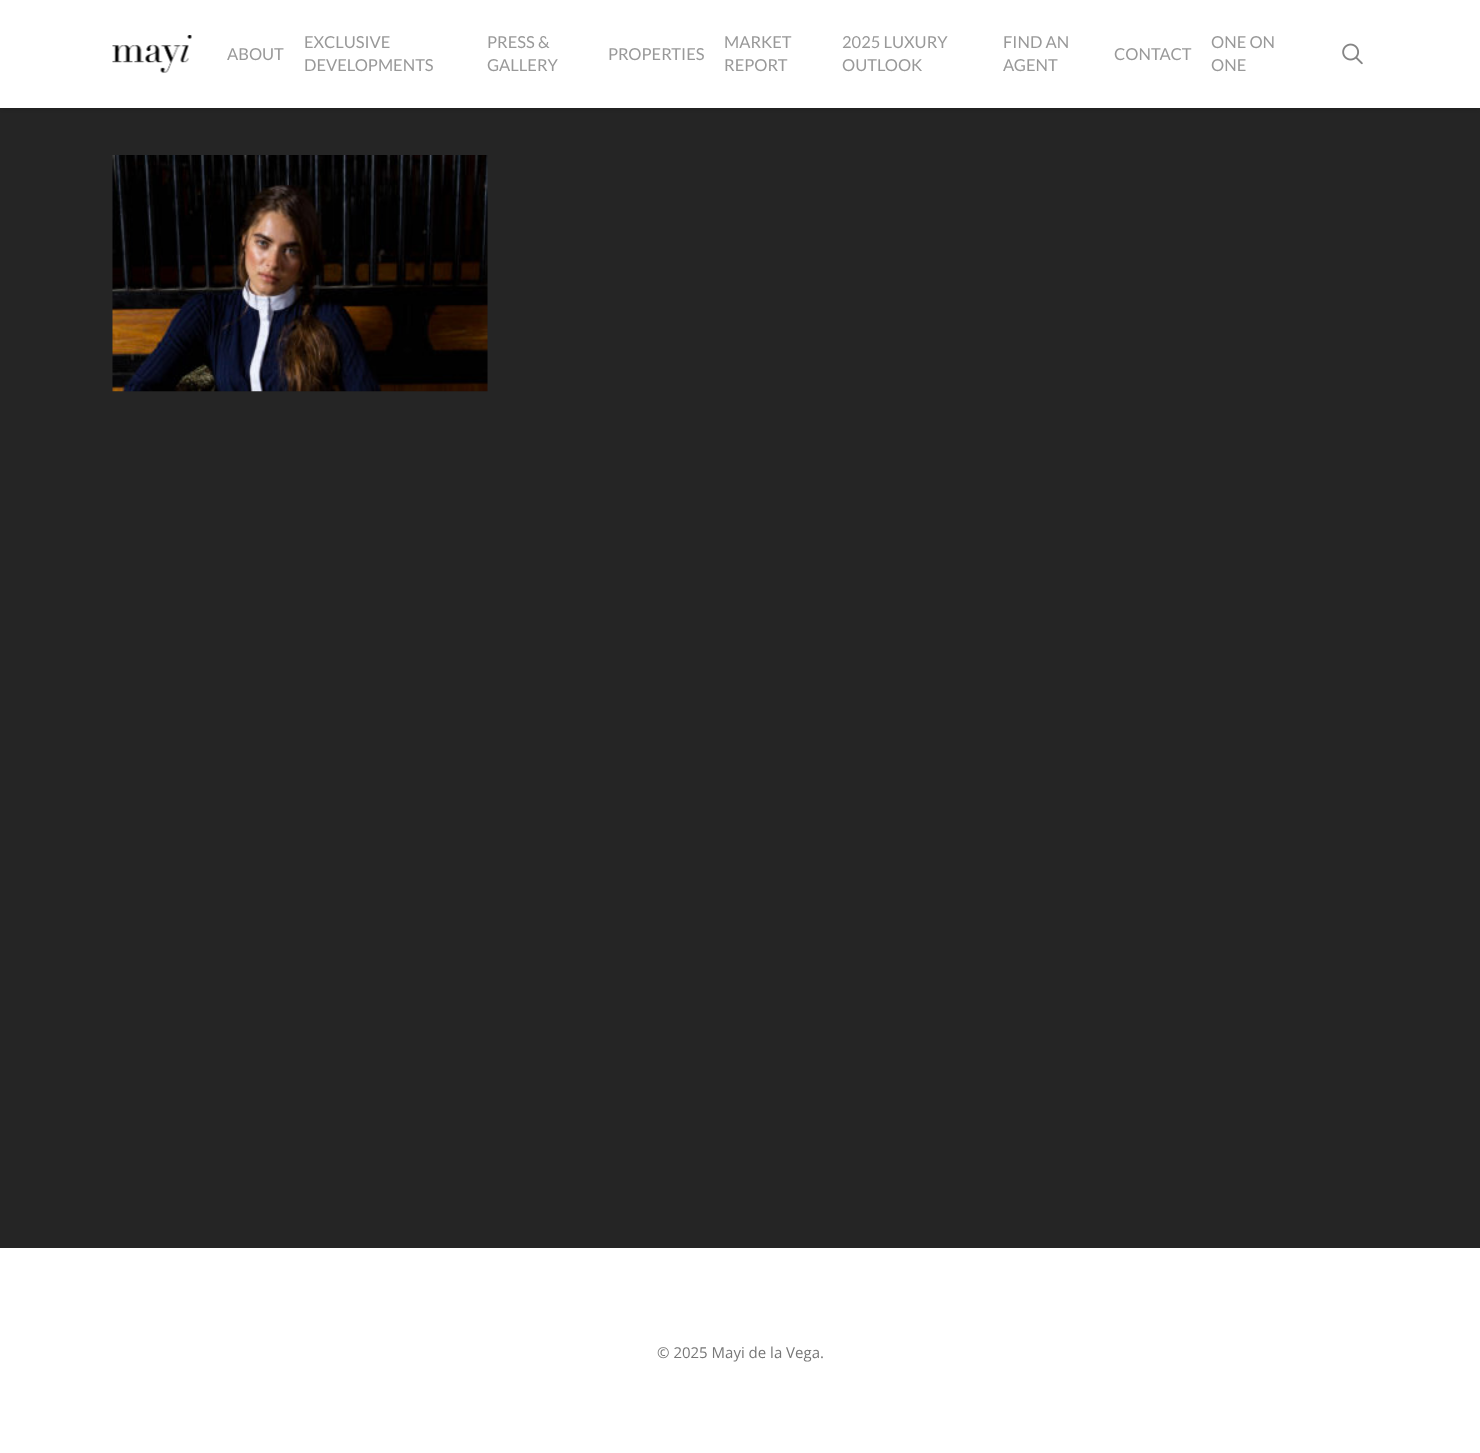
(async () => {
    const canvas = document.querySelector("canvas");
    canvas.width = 1480;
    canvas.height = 1453;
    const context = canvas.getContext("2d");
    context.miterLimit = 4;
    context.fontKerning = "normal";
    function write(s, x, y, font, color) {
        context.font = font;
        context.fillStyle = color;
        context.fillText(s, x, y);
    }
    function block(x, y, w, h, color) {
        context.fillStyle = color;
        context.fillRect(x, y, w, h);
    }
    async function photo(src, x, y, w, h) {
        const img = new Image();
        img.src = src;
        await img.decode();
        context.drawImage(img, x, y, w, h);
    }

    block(0, 0, 1480, 1453, "rgb(255, 255, 255)");
    block(0, 108, 1480, 1140, "rgb(37, 37, 37)");
    context.fillStyle = "rgba(0, 0, 0, 0.22)";
    context.filter = "blur(2px)";
    context.beginPath();
    context.rect(0, 0, 1480, 108);
    context.fill();
    context.filter = "none";
    block(0, 0, 1480, 108, "rgb(255, 255, 255)");
    await photo("media/1.png", 112, 35, 80, 38);
    write("ABOUT", 227, 60, "16.5px Lato", "rgb(153, 153, 153)");
    write("EXCLUSIVE", 304, 48, "16.5px Lato", "rgb(153, 153, 153)");
    write("DEVELOPMENTS", 304, 71, "16.5px Lato", "rgb(153, 153, 153)");
    write("PRESS &", 487, 48, "16.5px Lato", "rgb(153, 153, 153)");
    write("GALLERY", 487, 71, "16.5px Lato", "rgb(153, 153, 153)");
    write("PROPERTIES", 608, 60, "16.5px Lato", "rgb(153, 153, 153)");
    write("MARKET", 724, 48, "16.5px Lato", "rgb(153, 153, 153)");
    write("REPORT", 724, 71, "16.5px Lato", "rgb(153, 153, 153)");
    write("2025 LUXURY", 842, 48, "16.5px Lato", "rgb(153, 153, 153)");
    write("OUTLOOK", 842, 71, "16.5px Lato", "rgb(153, 153, 153)");
    write("FIND AN", 1003, 48, "16.5px Lato", "rgb(153, 153, 153)");
    write("AGENT", 1003, 71, "16.5px Lato", "rgb(153, 153, 153)");
    write("CONTACT", 1114, 60, "16.5px Lato", "rgb(153, 153, 153)");
    write("ONE ON", 1211, 48, "16.5px Lato", "rgb(153, 153, 153)");
    write("ONE", 1211, 71, "16.5px Lato", "rgb(153, 153, 153)");
    await photo("media/2.png", 1342, 43, 21, 22);
    await photo("media/3.png", 112, 155, 376, 237);
    write("© 2025 Mayi de la Vega.", 657, 1358, "15px Open Sans", "rgb(119, 119, 119)");
})();
